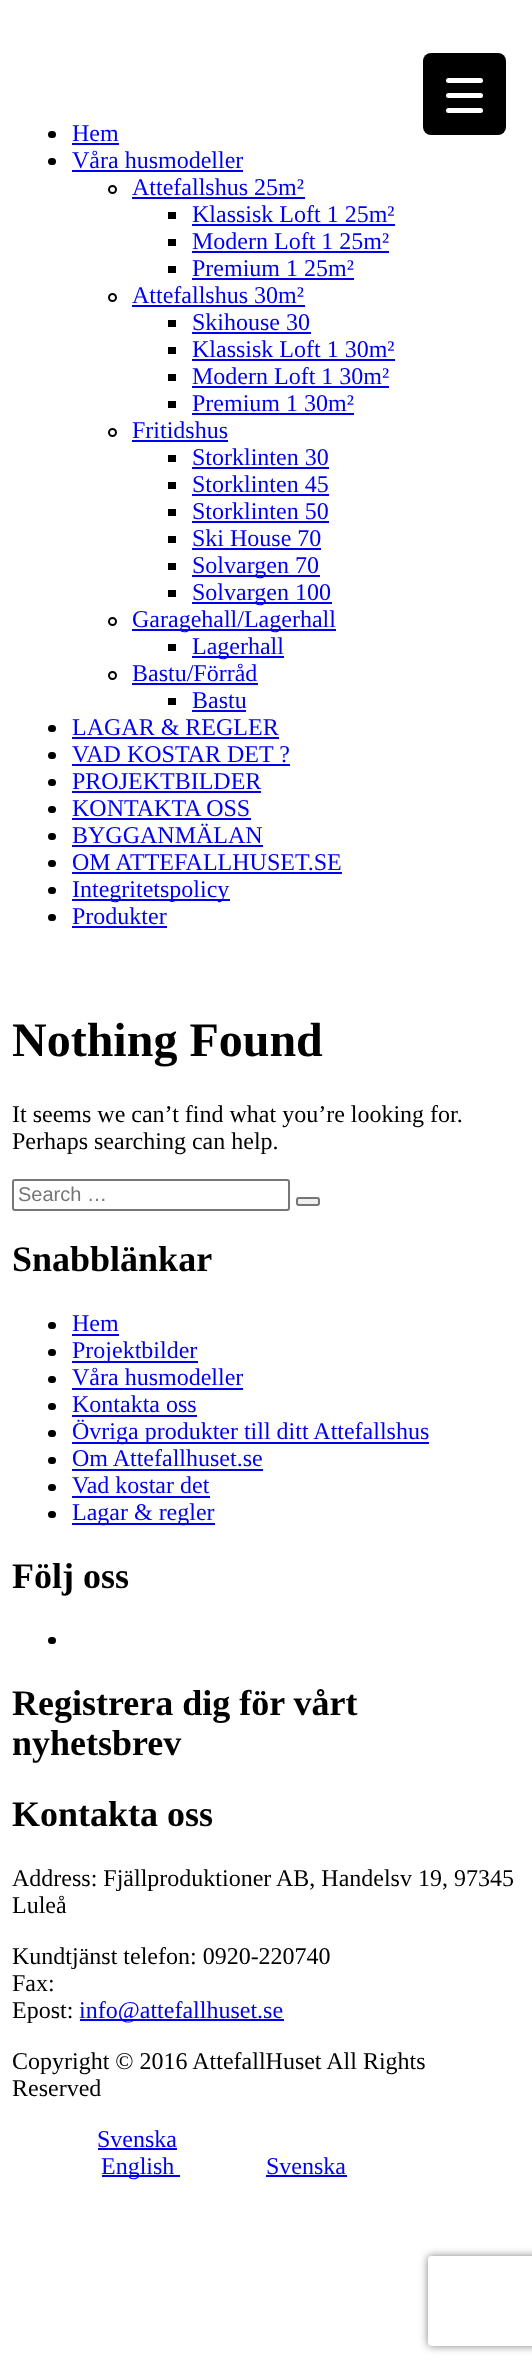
(async () => {
    const canvas = document.querySelector("canvas");
    canvas.width = 532;
    canvas.height = 2366;
    const context = canvas.getContext("2d");
    context.miterLimit = 4;
    context.fontKerning = "normal";
    function write(s, x, y, font, color) {
        context.font = font;
        context.fillStyle = color;
        context.fillText(s, x, y);
    }
    function block(x, y, w, h, color) {
        context.fillStyle = color;
        context.fillRect(x, y, w, h);
    }
    function card(x, y, w, h, r, color) {
        context.fillStyle = color;
        context.beginPath();
        context.roundRect(x, y, w, h, r);
        context.fill();
    }

    block(0, 0, 532, 2366, "rgb(255, 255, 255)");
    card(423, 53, 83, 82, 8, "rgb(0, 0, 0)");
    card(446, 93, 37, 5, 2.5, "rgb(255, 255, 255)");
    card(446, 78, 37, 5, 2.5, "rgb(255, 255, 255)");
    card(446, 108, 37, 5, 2.5, "rgb(255, 255, 255)");
    card(48, 131, 8, 7, 3.5, "rgb(0, 0, 0)");
    write("Hem", 72, 141, "24px Liberation Serif", "rgb(0, 0, 238)");
    block(72, 143, 47, 2, "rgb(0, 0, 238)");
    card(48, 158, 8, 7, 3.5, "rgb(0, 0, 0)");
    write("Våra husmodeller", 72, 168, "24px Liberation Serif", "rgb(0, 0, 238)");
    block(72, 170, 171, 2, "rgb(0, 0, 238)");
    context.beginPath();
    context.arc(112.5, 189.5, 3.5, 0, Math.PI * 2);
    context.strokeStyle = "rgb(0, 0, 0)";
    context.lineWidth = 2;
    context.stroke();
    write("Attefallshus 25m²", 132, 195, "24px Liberation Serif", "rgb(0, 0, 238)");
    block(132, 197, 173, 2, "rgb(0, 0, 238)");
    block(168, 212, 8, 7, "rgb(0, 0, 0)");
    write("Klassisk Loft 1 25m²", 192, 222, "24px Liberation Serif", "rgb(0, 0, 238)");
    block(192, 224, 203, 2, "rgb(0, 0, 238)");
    block(168, 239, 8, 7, "rgb(0, 0, 0)");
    write("Modern Loft 1 25m²", 192, 249, "24px Liberation Serif", "rgb(0, 0, 238)");
    block(192, 251, 197, 2, "rgb(0, 0, 238)");
    block(168, 266, 8, 7, "rgb(0, 0, 0)");
    write("Premium 1 25m²", 192, 276, "24px Liberation Serif", "rgb(0, 0, 238)");
    block(192, 278, 162, 2, "rgb(0, 0, 238)");
    context.beginPath();
    context.arc(112.5, 297.5, 3.5, 0, Math.PI * 2);
    context.stroke();
    write("Attefallshus 30m²", 132, 303, "24px Liberation Serif", "rgb(0, 0, 238)");
    block(132, 305, 173, 2, "rgb(0, 0, 238)");
    block(168, 320, 8, 7, "rgb(0, 0, 0)");
    write("Skihouse 30", 192, 330, "24px Liberation Serif", "rgb(0, 0, 238)");
    block(192, 332, 119, 2, "rgb(0, 0, 238)");
    block(168, 347, 8, 7, "rgb(0, 0, 0)");
    write("Klassisk Loft 1 30m²", 192, 357, "24px Liberation Serif", "rgb(0, 0, 238)");
    block(192, 359, 203, 2, "rgb(0, 0, 238)");
    block(168, 374, 8, 7, "rgb(0, 0, 0)");
    write("Modern Loft 1 30m²", 192, 384, "24px Liberation Serif", "rgb(0, 0, 238)");
    block(192, 386, 197, 2, "rgb(0, 0, 238)");
    block(168, 401, 8, 7, "rgb(0, 0, 0)");
    write("Premium 1 30m²", 192, 411, "24px Liberation Serif", "rgb(0, 0, 238)");
    block(192, 413, 162, 2, "rgb(0, 0, 238)");
    context.beginPath();
    context.arc(112.5, 432.5, 3.5, 0, Math.PI * 2);
    context.stroke();
    write("Fritidshus", 132, 438, "24px Liberation Serif", "rgb(0, 0, 238)");
    block(132, 440, 96, 2, "rgb(0, 0, 238)");
    block(168, 455, 8, 7, "rgb(0, 0, 0)");
    write("Storklinten 30", 192, 465, "24px Liberation Serif", "rgb(0, 0, 238)");
    block(192, 467, 137, 2, "rgb(0, 0, 238)");
    block(168, 482, 8, 7, "rgb(0, 0, 0)");
    write("Storklinten 45", 192, 492, "24px Liberation Serif", "rgb(0, 0, 238)");
    block(192, 494, 137, 2, "rgb(0, 0, 238)");
    block(168, 509, 8, 7, "rgb(0, 0, 0)");
    write("Storklinten 50", 192, 519, "24px Liberation Serif", "rgb(0, 0, 238)");
    block(192, 521, 137, 2, "rgb(0, 0, 238)");
    block(168, 536, 8, 7, "rgb(0, 0, 0)");
    write("Ski House 70", 192, 546, "24px Liberation Serif", "rgb(0, 0, 238)");
    block(192, 548, 129, 2, "rgb(0, 0, 238)");
    block(168, 563, 8, 7, "rgb(0, 0, 0)");
    block(192, 575, 128, 2, "rgb(0, 0, 238)");
    write("Solvargen 70", 192, 573, "24px Liberation Serif", "rgb(0, 0, 238)");
    block(168, 590, 8, 7, "rgb(0, 0, 0)");
    block(192, 602, 140, 2, "rgb(0, 0, 238)");
    write("Solvargen 100", 192, 600, "24px Liberation Serif", "rgb(0, 0, 238)");
    context.beginPath();
    context.arc(112.5, 621.5, 3.5, 0, Math.PI * 2);
    context.stroke();
    block(132, 629, 204, 2, "rgb(0, 0, 238)");
    write("Garagehall/Lagerhall", 132, 627, "24px Liberation Serif", "rgb(0, 0, 238)");
    block(168, 644, 8, 7, "rgb(0, 0, 0)");
    block(192, 656, 92, 2, "rgb(0, 0, 238)");
    write("Lagerhall", 192, 654, "24px Liberation Serif", "rgb(0, 0, 238)");
    context.beginPath();
    context.arc(112.5, 675.5, 3.5, 0, Math.PI * 2);
    context.stroke();
    write("Bastu/Förråd", 132, 681, "24px Liberation Serif", "rgb(0, 0, 238)");
    block(132, 683, 126, 2, "rgb(0, 0, 238)");
    block(168, 698, 8, 7, "rgb(0, 0, 0)");
    write("Bastu", 192, 708, "24px Liberation Serif", "rgb(0, 0, 238)");
    block(192, 710, 54, 2, "rgb(0, 0, 238)");
    card(48, 725, 8, 7, 3.5, "rgb(0, 0, 0)");
    write("LAGAR & REGLER", 72, 735, "24px Liberation Serif", "rgb(0, 0, 238)");
    block(72, 737, 207, 2, "rgb(0, 0, 238)");
    card(48, 752, 8, 7, 3.5, "rgb(0, 0, 0)");
    write("VAD KOSTAR DET ?", 72, 762, "24px Liberation Serif", "rgb(0, 0, 238)");
    block(72, 764, 218, 2, "rgb(0, 0, 238)");
    card(48, 779, 8, 7, 3.5, "rgb(0, 0, 0)");
    write("PROJEKTBILDER", 72, 789, "24px Liberation Serif", "rgb(0, 0, 238)");
    block(72, 791, 189, 2, "rgb(0, 0, 238)");
    card(48, 806, 8, 7, 3.5, "rgb(0, 0, 0)");
    write("KONTAKTA OSS", 72, 816, "24px Liberation Serif", "rgb(0, 0, 238)");
    block(72, 818, 179, 2, "rgb(0, 0, 238)");
    card(48, 833, 8, 7, 3.5, "rgb(0, 0, 0)");
    write("BYGGANMÄLAN", 72, 843, "24px Liberation Serif", "rgb(0, 0, 238)");
    block(72, 845, 191, 2, "rgb(0, 0, 238)");
    card(48, 860, 8, 7, 3.5, "rgb(0, 0, 0)");
    write("OM ATTEFALLHUSET.SE", 72, 870, "24px Liberation Serif", "rgb(0, 0, 238)");
    block(72, 872, 270, 2, "rgb(0, 0, 238)");
    card(48, 887, 8, 7, 3.5, "rgb(0, 0, 0)");
    block(72, 899, 158, 2, "rgb(0, 0, 238)");
    write("Integritetspolicy", 72, 897, "24px Liberation Serif", "rgb(0, 0, 238)");
    card(48, 914, 8, 7, 3.5, "rgb(0, 0, 0)");
    write("Produkter", 72, 924, "24px Liberation Serif", "rgb(0, 0, 238)");
    block(72, 926, 95, 2, "rgb(0, 0, 238)");
    write("Nothing Found", 12, 1056, "bold 48px Liberation Serif", "rgb(0, 0, 0)");
    write("It seems we can’t find what you’re looking for.", 12, 1122, "24px Liberation Serif", "rgb(0, 0, 0)");
    write("Perhaps searching can help.", 12, 1149, "24px Liberation Serif", "rgb(0, 0, 0)");
    context.beginPath();
    context.roundRect(13, 1180, 276, 30, 2);
    context.strokeStyle = "rgb(118, 118, 118)";
    context.stroke();
    write("Search …", 18, 1201, "20px Liberation Sans", "rgb(117, 117, 117)");
    context.fillStyle = "rgb(239, 239, 239)";
    context.beginPath();
    context.roundRect(297, 1198, 22, 7, 2);
    context.fill();
    context.stroke();
    write("Snabblänkar", 12, 1271, "bold 36px Liberation Serif", "rgb(0, 0, 0)");
    card(48, 1322, 8, 7, 3.5, "rgb(0, 0, 0)");
    write("Hem", 72, 1331, "24px Liberation Serif", "rgb(0, 0, 238)");
    block(72, 1334, 47, 2, "rgb(0, 0, 238)");
    card(48, 1349, 8, 7, 3.5, "rgb(0, 0, 0)");
    block(72, 1361, 126, 2, "rgb(0, 0, 238)");
    write("Projektbilder", 72, 1358, "24px Liberation Serif", "rgb(0, 0, 238)");
    card(48, 1376, 8, 7, 3.5, "rgb(0, 0, 0)");
    write("Våra husmodeller", 72, 1385, "24px Liberation Serif", "rgb(0, 0, 238)");
    block(72, 1388, 171, 2, "rgb(0, 0, 238)");
    card(48, 1403, 8, 7, 3.5, "rgb(0, 0, 0)");
    write("Kontakta oss", 72, 1412, "24px Liberation Serif", "rgb(0, 0, 238)");
    block(72, 1415, 125, 2, "rgb(0, 0, 238)");
    card(48, 1430, 8, 7, 3.5, "rgb(0, 0, 0)");
    block(72, 1442, 357, 2, "rgb(0, 0, 238)");
    write("Övriga produkter till ditt Attefallshus", 72, 1439, "24px Liberation Serif", "rgb(0, 0, 238)");
    card(48, 1457, 8, 7, 3.5, "rgb(0, 0, 0)");
    write("Om Attefallhuset.se", 72, 1466, "24px Liberation Serif", "rgb(0, 0, 238)");
    block(72, 1469, 191, 2, "rgb(0, 0, 238)");
    card(48, 1484, 8, 7, 3.5, "rgb(0, 0, 0)");
    write("Vad kostar det", 72, 1493, "24px Liberation Serif", "rgb(0, 0, 238)");
    block(72, 1496, 138, 2, "rgb(0, 0, 238)");
    card(48, 1511, 8, 7, 3.5, "rgb(0, 0, 0)");
    block(72, 1523, 143, 2, "rgb(0, 0, 238)");
    write("Lagar & regler", 72, 1520, "24px Liberation Serif", "rgb(0, 0, 238)");
    write("Följ oss", 12, 1588, "bold 36px Liberation Serif", "rgb(0, 0, 0)");
    card(48, 1637, 8, 7, 3.5, "rgb(0, 0, 0)");
    write("Registrera dig för vårt", 12, 1715, "bold 36px Liberation Serif", "rgb(0, 0, 0)");
    write("nyhetsbrev", 12, 1755, "bold 36px Liberation Serif", "rgb(0, 0, 0)");
    write("Kontakta oss", 12, 1826, "bold 36px Liberation Serif", "rgb(0, 0, 0)");
    write("Address: Fjällproduktioner AB, Handelsv 19, 97345", 12, 1886, "24px Liberation Serif", "rgb(0, 0, 0)");
    write("Luleå", 12, 1913, "24px Liberation Serif", "rgb(0, 0, 0)");
    write("Kundtjänst telefon: 0920-220740", 12, 1964, "24px Liberation Serif", "rgb(0, 0, 0)");
    write("Fax:", 12, 1991, "24px Liberation Serif", "rgb(0, 0, 0)");
    write("Epost:", 12, 2018, "24px Liberation Serif", "rgb(0, 0, 0)");
    block(80, 2019, 204, 2, "rgb(0, 0, 238)");
    write("info@attefallhuset.se", 79, 2018, "24px Liberation Serif", "rgb(0, 0, 238)");
    write("Copyright © 2016 AttefallHuset All Rights", 12, 2069, "24px Liberation Serif", "rgb(0, 0, 0)");
    write("Reserved", 12, 2096, "24px Liberation Serif", "rgb(0, 0, 0)");
    write("Svenska", 97, 2147, "24px Liberation Serif", "rgb(0, 0, 238)");
    block(98, 2148, 79, 2, "rgb(0, 0, 238)");
    block(102, 2175, 78, 2, "rgb(0, 0, 238)");
    write("English", 101, 2174, "24px Liberation Serif", "rgb(0, 0, 238)");
    write("Svenska", 266, 2174, "24px Liberation Serif", "rgb(0, 0, 238)");
    block(266, 2175, 81, 2, "rgb(0, 0, 238)");
    context.save();
    context.beginPath();
    context.moveTo(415, 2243);
    context.lineTo(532, 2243);
    context.lineTo(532, 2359);
    context.lineTo(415, 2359);
    context.closePath();
    context.moveTo(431, 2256);
    context.lineTo(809, 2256);
    context.bezierCurveTo(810.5, 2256, 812, 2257.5, 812, 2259);
    context.lineTo(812, 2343);
    context.bezierCurveTo(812, 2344.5, 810.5, 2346, 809, 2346);
    context.lineTo(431, 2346);
    context.bezierCurveTo(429.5, 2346, 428, 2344.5, 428, 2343);
    context.lineTo(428, 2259);
    context.bezierCurveTo(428, 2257.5, 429.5, 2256, 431, 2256);
    context.closePath();
    context.clip("evenodd");
    context.fillStyle = "rgb(128, 128, 128)";
    context.filter = "blur(4px)";
    context.beginPath();
    context.roundRect(428, 2256, 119, 90, 3);
    context.fill();
    context.filter = "none";
    context.restore();
})();
